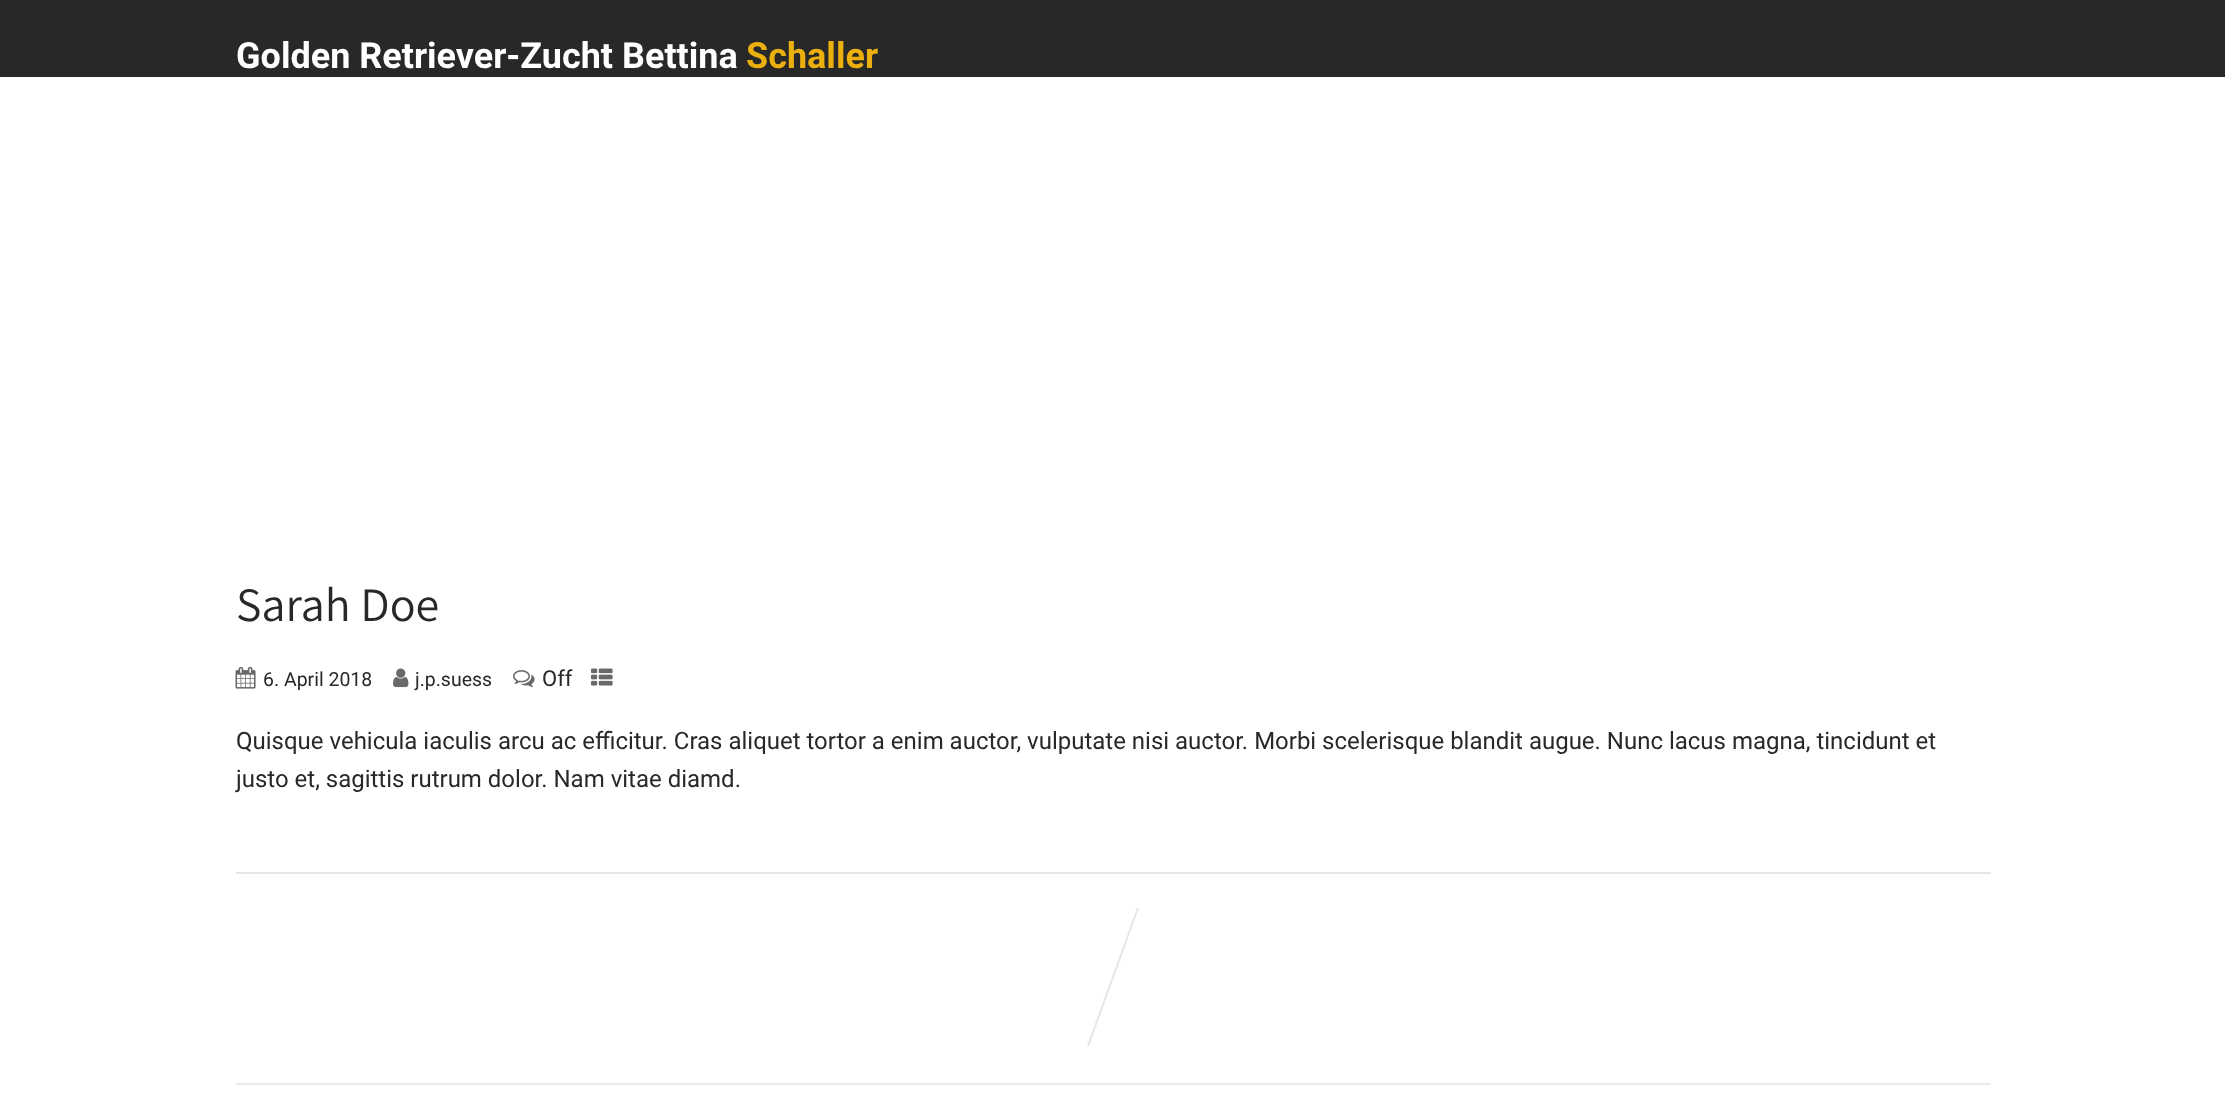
(async () => {
    const canvas = document.querySelector("canvas");
    canvas.width = 2225;
    canvas.height = 1116;
    const context = canvas.getContext("2d");
    context.miterLimit = 4;
    context.fontKerning = "normal";
    function write(s, x, y, font, color) {
        context.font = font;
        context.fillStyle = color;
        context.fillText(s, x, y);
    }
    function block(x, y, w, h, color) {
        context.fillStyle = color;
        context.fillRect(x, y, w, h);
    }
    async function photo(src, x, y, w, h) {
        const img = new Image();
        img.src = src;
        await img.decode();
        context.drawImage(img, x, y, w, h);
    }

    block(0, 0, 2225, 1116, "rgb(255, 255, 255)");
    block(0, 0, 2225, 77, "rgb(40, 40, 40)");
    write("Golden Retriever-Zucht Bettina", 236, 68, "bold 36px Roboto", "rgb(255, 255, 255)");
    write("Schaller", 746, 68, "bold 36px Roboto", "rgb(236, 176, 14)");
    write("Sarah Doe", 236, 621, "200 48px Assistant", "rgb(40, 40, 40)");
    await photo("media/1.png", 235, 667, 21, 22);
    write("6. April 2018", 263, 686, "19.5px Roboto", "rgb(40, 40, 40)");
    await photo("media/2.png", 393, 668, 16, 20);
    write("j.p.suess", 415, 686, "19.5px Roboto", "rgb(40, 40, 40)");
    await photo("media/3.png", 513, 670, 22, 17);
    write("Off", 542, 686, "22px Roboto", "rgb(40, 40, 40)");
    await photo("media/4.png", 591, 668, 22, 18);
    write("Quisque vehicula iaculis arcu ac efficitur. Cras aliquet tortor a enim auctor, vulputate nisi auctor. Morbi scelerisque blandit augue. Nunc lacus magna, tincidunt et", 236, 749, "24px Roboto", "rgb(40, 40, 40)");
    write("justo et, sagittis rutrum dolor. Nam vitae diamd.", 236, 787, "24px Roboto", "rgb(40, 40, 40)");
    block(236, 872, 1755, 2, "rgb(230, 230, 230)");
    block(236, 1083, 1755, 2, "rgb(235, 235, 235)");
    context.fillStyle = "rgb(230, 230, 230)";
    context.beginPath();
    context.moveTo(1137, 908);
    context.lineTo(1139, 908);
    context.lineTo(1089, 1046);
    context.lineTo(1087, 1046);
    context.closePath();
    context.fill();
})();
